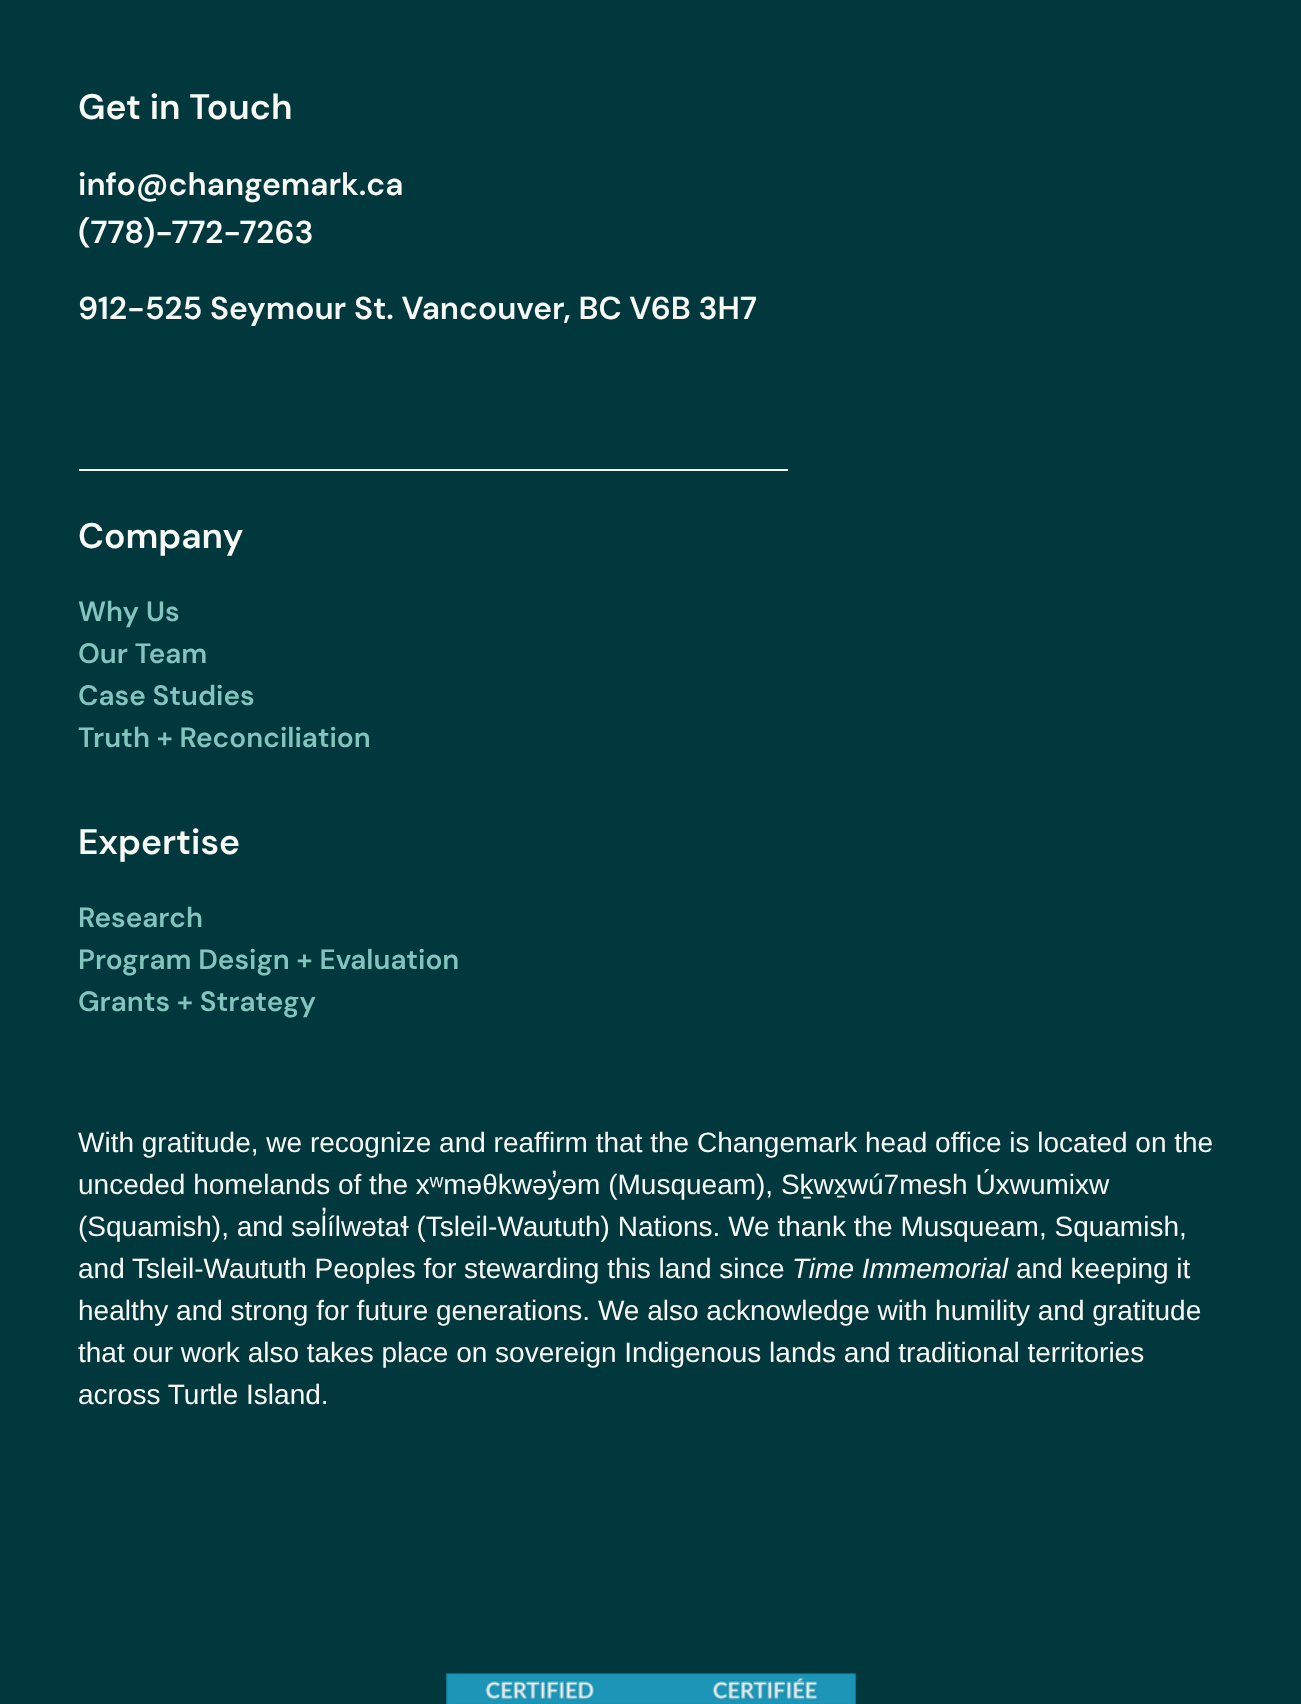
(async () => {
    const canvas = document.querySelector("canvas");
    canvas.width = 1301;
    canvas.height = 1704;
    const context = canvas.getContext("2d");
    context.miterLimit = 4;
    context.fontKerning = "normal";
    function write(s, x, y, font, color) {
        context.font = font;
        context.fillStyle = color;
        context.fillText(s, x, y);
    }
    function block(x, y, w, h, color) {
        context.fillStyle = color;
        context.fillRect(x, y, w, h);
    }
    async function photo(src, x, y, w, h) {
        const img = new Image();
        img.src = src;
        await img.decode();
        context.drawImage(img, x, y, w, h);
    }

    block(0, 0, 1301, 1704, "rgb(0, 56, 61)");
    write("Get in Touch", 78, 119, "600 35.5px DM Sans", "rgb(248, 248, 245)");
    write("info@changemark.ca", 78, 195, "600 31.75px DM Sans", "rgb(248, 248, 245)");
    write("(778)-772-7263", 78, 243, "600 31.75px DM Sans", "rgb(248, 248, 245)");
    write("912-525 Seymour St. Vancouver, BC V6B 3H7", 78, 319, "600 31.75px DM Sans", "rgb(248, 248, 245)");
    block(79, 469, 709, 2, "rgb(248, 248, 245)");
    write("Company", 78, 548, "600 35.5px DM Sans", "rgb(248, 248, 245)");
    write("Why Us", 78, 621, "600 28px DM Sans", "rgb(131, 197, 190)");
    write("Our Team", 78, 663, "600 28px DM Sans", "rgb(131, 197, 190)");
    write("Case Studies", 78, 705, "600 28px DM Sans", "rgb(131, 197, 190)");
    write("Truth + Reconciliation", 78, 747, "600 28px DM Sans", "rgb(131, 197, 190)");
    write("Expertise", 78, 854, "600 35.5px DM Sans", "rgb(248, 248, 245)");
    write("Research", 78, 927, "600 28px DM Sans", "rgb(131, 197, 190)");
    write("Program Design + Evaluation", 78, 969, "600 28px DM Sans", "rgb(131, 197, 190)");
    write("Grants + Strategy", 78, 1011, "600 28px DM Sans", "rgb(131, 197, 190)");
    write("With gratitude, we recognize and reaffirm that the Changemark head office is located on the", 78, 1152, "28px Liberation Sans", "rgb(248, 248, 245)");
    write("unceded homelands of the xʷməθkwəy̓əm (Musqueam), Sḵwx̱wú7mesh Úxwumixw", 78, 1194, "28px Liberation Sans", "rgb(248, 248, 245)");
    write("(Squamish), and səl̓ílwətaɬ (Tsleil-Waututh) Nations. We thank the Musqueam, Squamish,", 78, 1236, "28px Liberation Sans", "rgb(248, 248, 245)");
    write("and Tsleil-Waututh Peoples for stewarding this land since", 78, 1278, "28px Liberation Sans", "rgb(248, 248, 245)");
    write("Time Immemorial", 792, 1278, "italic 28px Liberation Sans", "rgb(248, 248, 245)");
    write("and keeping it", 1016, 1278, "28px Liberation Sans", "rgb(248, 248, 245)");
    write("healthy and strong for future generations. We also acknowledge with humility and gratitude", 78, 1320, "28px Liberation Sans", "rgb(248, 248, 245)");
    write("that our work also takes place on sovereign Indigenous lands and traditional territories", 78, 1362, "28px Liberation Sans", "rgb(248, 248, 245)");
    write("across Turtle Island.", 78, 1404, "28px Liberation Sans", "rgb(248, 248, 245)");
    await photo("media/1.png", 446, 1673, 410, 31);
})();
